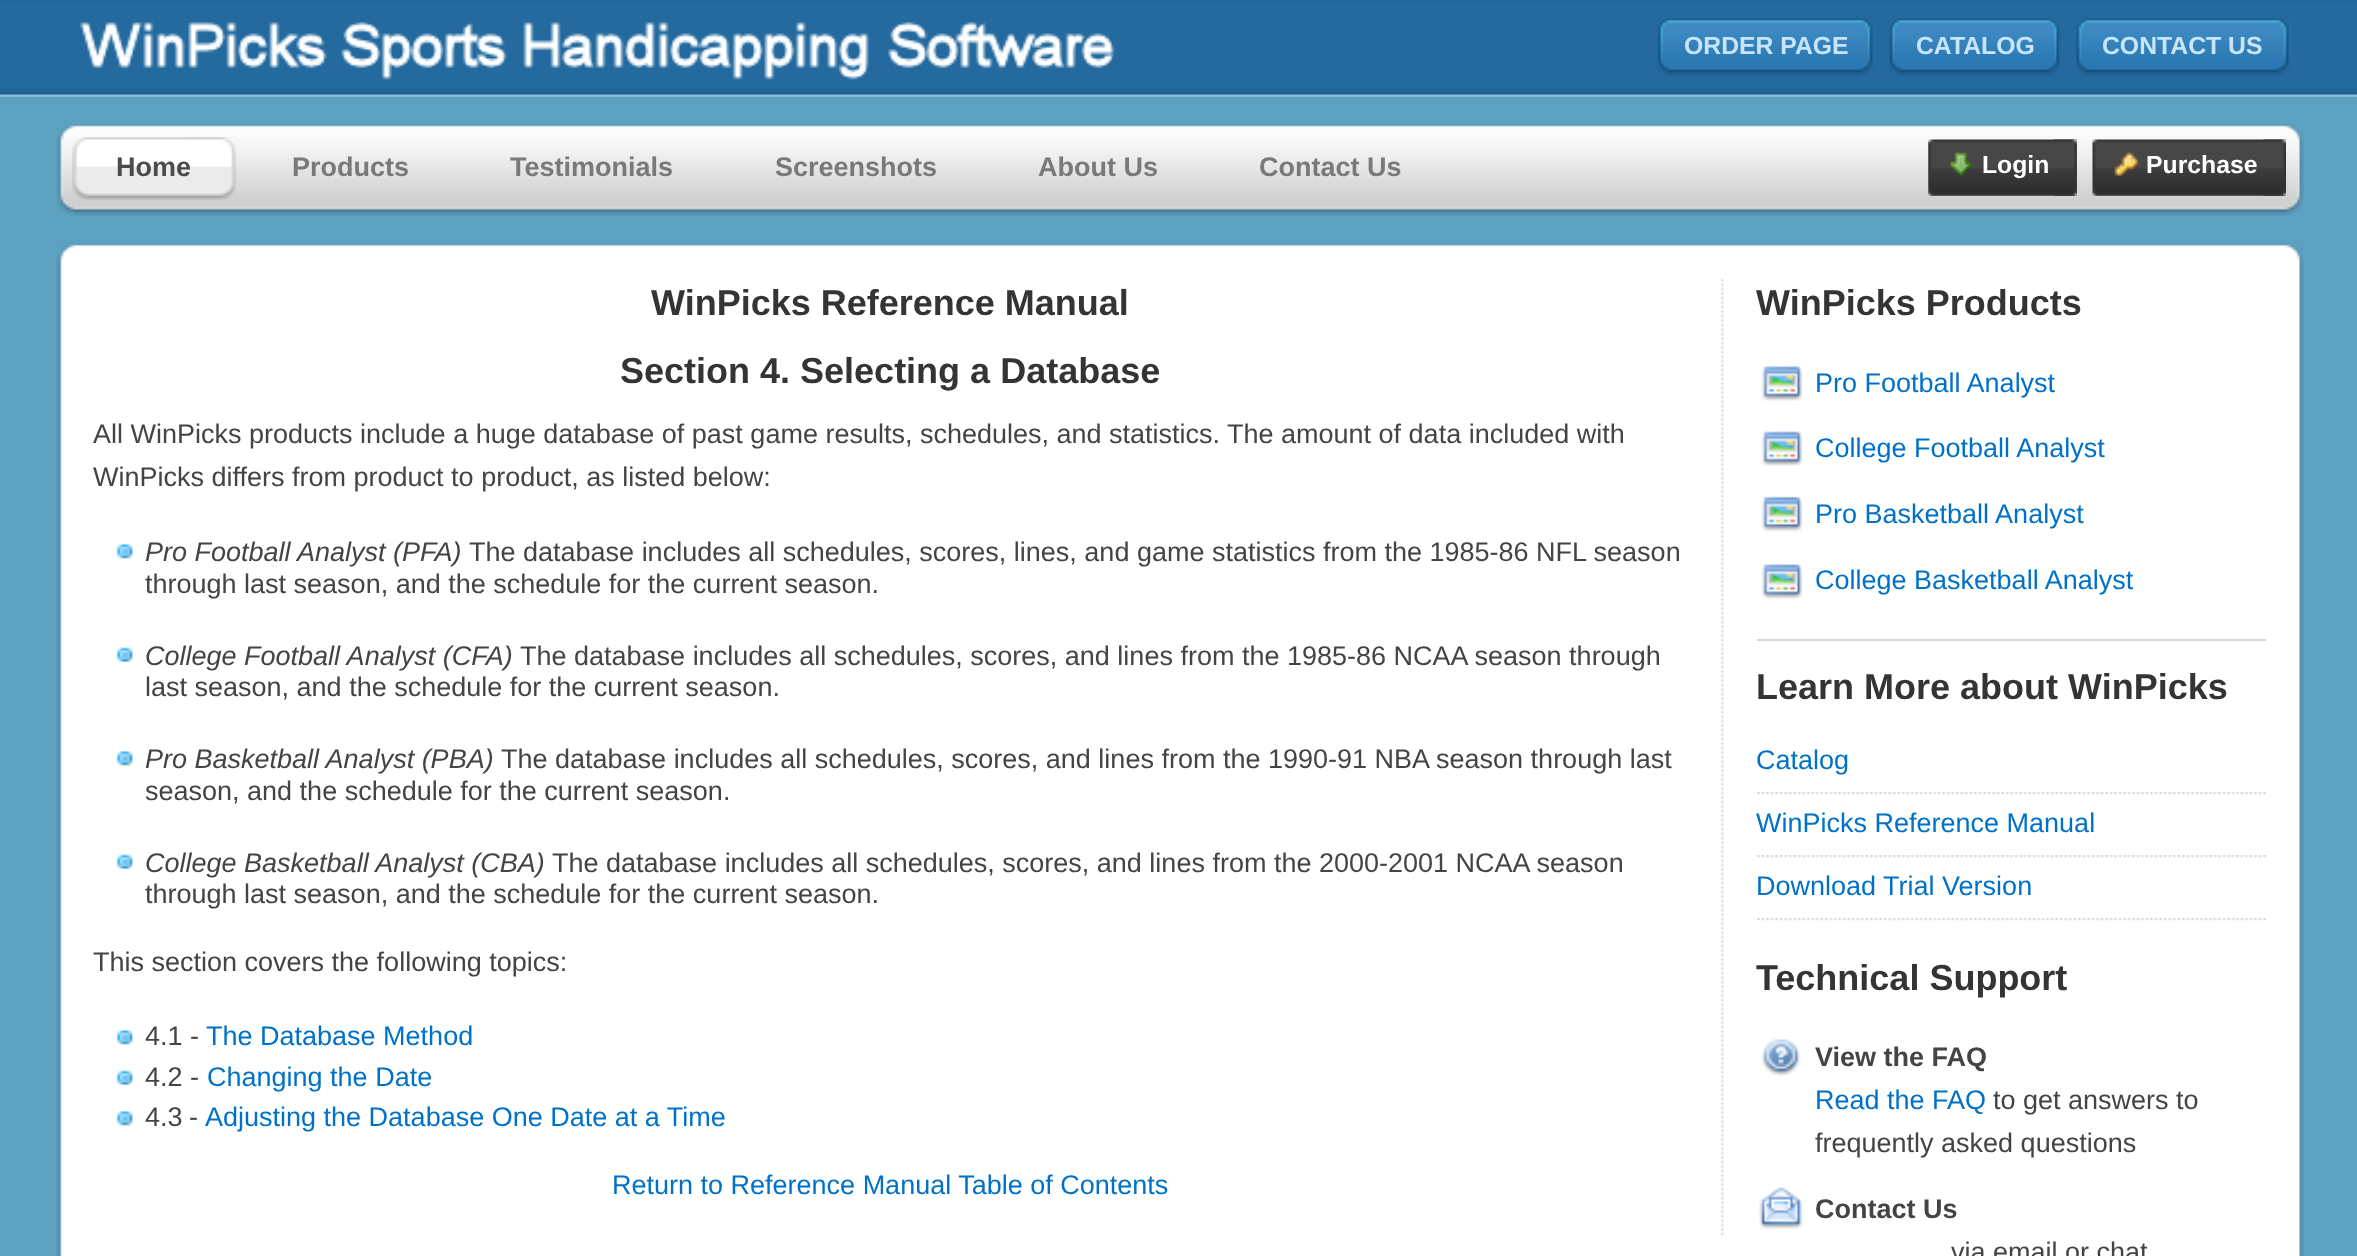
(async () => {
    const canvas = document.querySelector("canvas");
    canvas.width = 2357;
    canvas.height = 1256;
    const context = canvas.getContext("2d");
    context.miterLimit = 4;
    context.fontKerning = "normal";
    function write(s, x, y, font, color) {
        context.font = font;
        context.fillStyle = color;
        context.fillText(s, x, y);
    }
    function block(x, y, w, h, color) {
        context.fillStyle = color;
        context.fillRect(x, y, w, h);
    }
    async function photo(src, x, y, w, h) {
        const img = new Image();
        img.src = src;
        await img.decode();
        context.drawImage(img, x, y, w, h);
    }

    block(0, 0, 2357, 1256, "rgb(93, 161, 192)");
    await photo("media/1.png", 0, 0, 2357, 97);
    await photo("media/2.png", 80, 22, 1035, 58);
    await photo("media/3.png", 1657, 18, 218, 59);
    await photo("media/4.png", 1859, 18, 16, 59);
    write("ORDER PAGE", 1684, 54, "bold 24.75px Liberation Sans", "rgb(199, 229, 252)");
    await photo("media/5.png", 1889, 18, 157, 59);
    await photo("media/6.png", 2046, 18, 15, 59);
    write("CATALOG", 1916, 54, "bold 24.75px Liberation Sans", "rgb(199, 229, 252)");
    await photo("media/7.png", 2076, 18, 215, 59);
    await photo("media/8.png", 2276, 18, 15, 59);
    write("CONTACT US", 2102, 54, "bold 24.75px Liberation Sans", "rgb(199, 229, 252)");
    await photo("media/9.png", 56, 124, 2248, 92);
    await photo("media/10.png", 72, 137, 165, 63);
    await photo("media/11.png", 189, 137, 48, 63);
    write("Home", 116, 176, "bold 27px Liberation Sans", "rgb(75, 75, 75)");
    write("Products", 292, 176, "bold 27px Liberation Sans", "rgb(121, 121, 121)");
    write("Testimonials", 510, 176, "bold 27px Liberation Sans", "rgb(121, 121, 121)");
    write("Screenshots", 775, 176, "bold 27px Liberation Sans", "rgb(121, 121, 121)");
    write("About Us", 1038, 176, "bold 27px Liberation Sans", "rgb(121, 121, 121)");
    write("Contact Us", 1259, 176, "bold 27px Liberation Sans", "rgb(121, 121, 121)");
    await photo("media/12.png", 1928, 139, 149, 57);
    await photo("media/13.png", 2054, 139, 23, 57);
    await photo("media/14.png", 1950, 152, 22, 24);
    write("Login", 1982, 173, "bold 24.75px Liberation Sans", "rgb(255, 255, 255)");
    await photo("media/15.png", 2092, 139, 194, 57);
    await photo("media/16.png", 2263, 139, 23, 57);
    await photo("media/17.png", 2114, 152, 25, 25);
    write("Purchase", 2146, 173, "bold 24.75px Liberation Sans", "rgb(255, 255, 255)");
    await photo("media/18.png", 56, 243, 2248, 36);
    await photo("media/19.png", 56, 279, 2248, 977);
    await photo("media/20.png", 1721, 279, 3, 957);
    write("WinPicks Reference Manual", 651, 315, "bold 36px Liberation Sans", "rgb(52, 52, 52)");
    write("Section 4. Selecting a Database", 620, 383, "bold 36px Liberation Sans", "rgb(52, 52, 52)");
    write("All WinPicks products include a huge database of past game results, schedules, and statistics.", 93, 443, "27px Liberation Sans", "rgb(68, 68, 68)");
    write("The amount of data included with", 1227, 443, "27px Liberation Sans", "rgb(68, 68, 68)");
    write("WinPicks differs from product to product, as listed below:", 93, 486, "27px Liberation Sans", "rgb(68, 68, 68)");
    await photo("media/21.png", 116, 544, 17, 15);
    write("Pro Football Analyst (PFA)", 145, 561, "italic 27px Liberation Sans", "rgb(68, 68, 68)");
    write("The database includes all schedules, scores, lines, and game statistics from the 1985-86 NFL season", 469, 561, "27px Liberation Sans", "rgb(68, 68, 68)");
    write("through last season, and the schedule for the current season.", 145, 593, "27px Liberation Sans", "rgb(68, 68, 68)");
    await photo("media/22.png", 116, 647, 17, 16);
    write("College Football Analyst (CFA)", 145, 665, "italic 27px Liberation Sans", "rgb(68, 68, 68)");
    write("The database includes all schedules, scores, and lines from the 1985-86 NCAA season through", 520, 665, "27px Liberation Sans", "rgb(68, 68, 68)");
    write("last season, and the schedule for the current season.", 145, 696, "27px Liberation Sans", "rgb(68, 68, 68)");
    await photo("media/21.png", 116, 751, 17, 15);
    write("Pro Basketball Analyst (PBA)", 145, 768, "italic 27px Liberation Sans", "rgb(68, 68, 68)");
    write("The database includes all schedules, scores, and lines from the 1990-91 NBA season through last", 501, 768, "27px Liberation Sans", "rgb(68, 68, 68)");
    write("season, and the schedule for the current season.", 145, 800, "27px Liberation Sans", "rgb(68, 68, 68)");
    await photo("media/22.png", 116, 854, 17, 16);
    write("College Basketball Analyst (CBA)", 145, 872, "italic 27px Liberation Sans", "rgb(68, 68, 68)");
    write("The database includes all schedules, scores, and lines from the 2000-2001 NCAA season", 552, 872, "27px Liberation Sans", "rgb(68, 68, 68)");
    write("through last season, and the schedule for the current season.", 145, 903, "27px Liberation Sans", "rgb(68, 68, 68)");
    write("This section covers the following topics:", 93, 971, "27px Liberation Sans", "rgb(68, 68, 68)");
    await photo("media/21.png", 116, 1030, 17, 15);
    write("4.1 -", 145, 1045, "27px Liberation Sans", "rgb(68, 68, 68)");
    write("The Database Method", 206, 1045, "27px Liberation Sans", "rgb(0, 113, 200)");
    await photo("media/22.png", 116, 1070, 17, 16);
    write("4.2 -", 145, 1086, "27px Liberation Sans", "rgb(68, 68, 68)");
    write("Changing the Date", 207, 1086, "27px Liberation Sans", "rgb(0, 113, 200)");
    await photo("media/21.png", 116, 1111, 17, 15);
    context.wordSpacing = "-1px";
    write("4.3 -", 145, 1126, "27px Liberation Sans", "rgb(68, 68, 68)");
    context.wordSpacing = "0px";
    write("Adjusting the Database One Date at a Time", 205, 1126, "27px Liberation Sans", "rgb(0, 113, 200)");
    write("Return to Reference Manual Table of Contents", 612, 1194, "27px Liberation Sans", "rgb(0, 113, 200)");
    block(1757, 639, 509, 2, "rgb(215, 215, 215)");
    write("WinPicks Products", 1756, 315, "bold 36px Liberation Sans", "rgb(52, 52, 52)");
    await photo("media/23.png", 1761, 366, 42, 35);
    write("Pro Football Analyst", 1815, 392, "27px Liberation Sans", "rgb(0, 113, 200)");
    await photo("media/24.png", 1761, 431, 42, 35);
    write("College Football Analyst", 1815, 457, "27px Liberation Sans", "rgb(0, 113, 200)");
    await photo("media/25.png", 1761, 496, 42, 36);
    write("Pro Basketball Analyst", 1815, 523, "27px Liberation Sans", "rgb(0, 113, 200)");
    await photo("media/26.png", 1761, 564, 42, 35);
    write("College Basketball Analyst", 1815, 589, "27px Liberation Sans", "rgb(0, 113, 200)");
    write("Learn More about WinPicks", 1756, 699, "bold 36px Liberation Sans", "rgb(52, 52, 52)");
    await photo("media/27.png", 1757, 792, 509, 3);
    write("Catalog", 1756, 769, "27px Liberation Sans", "rgb(0, 113, 200)");
    await photo("media/27.png", 1757, 855, 509, 3);
    write("WinPicks Reference Manual", 1756, 832, "27px Liberation Sans", "rgb(0, 113, 200)");
    await photo("media/27.png", 1757, 918, 509, 3);
    write("Download Trial Version", 1756, 895, "27px Liberation Sans", "rgb(0, 113, 200)");
    write("Technical Support", 1756, 990, "bold 36px Liberation Sans", "rgb(52, 52, 52)");
    await photo("media/28.png", 1761, 1039, 40, 37);
    write("View the FAQ", 1815, 1066, "bold 27px Liberation Sans", "rgb(68, 68, 68)");
    write("Read the FAQ", 1815, 1109, "27px Liberation Sans", "rgb(0, 113, 200)");
    write("to get answers to", 1993, 1109, "27px Liberation Sans", "rgb(68, 68, 68)");
    write("frequently asked questions", 1815, 1152, "27px Liberation Sans", "rgb(68, 68, 68)");
    await photo("media/29.png", 1759, 1187, 44, 42);
    write("Contact Us", 1815, 1218, "bold 27px Liberation Sans", "rgb(68, 68, 68)");
    write("via email or chat", 1951, 1261, "27px Liberation Sans", "rgb(68, 68, 68)");
})();
